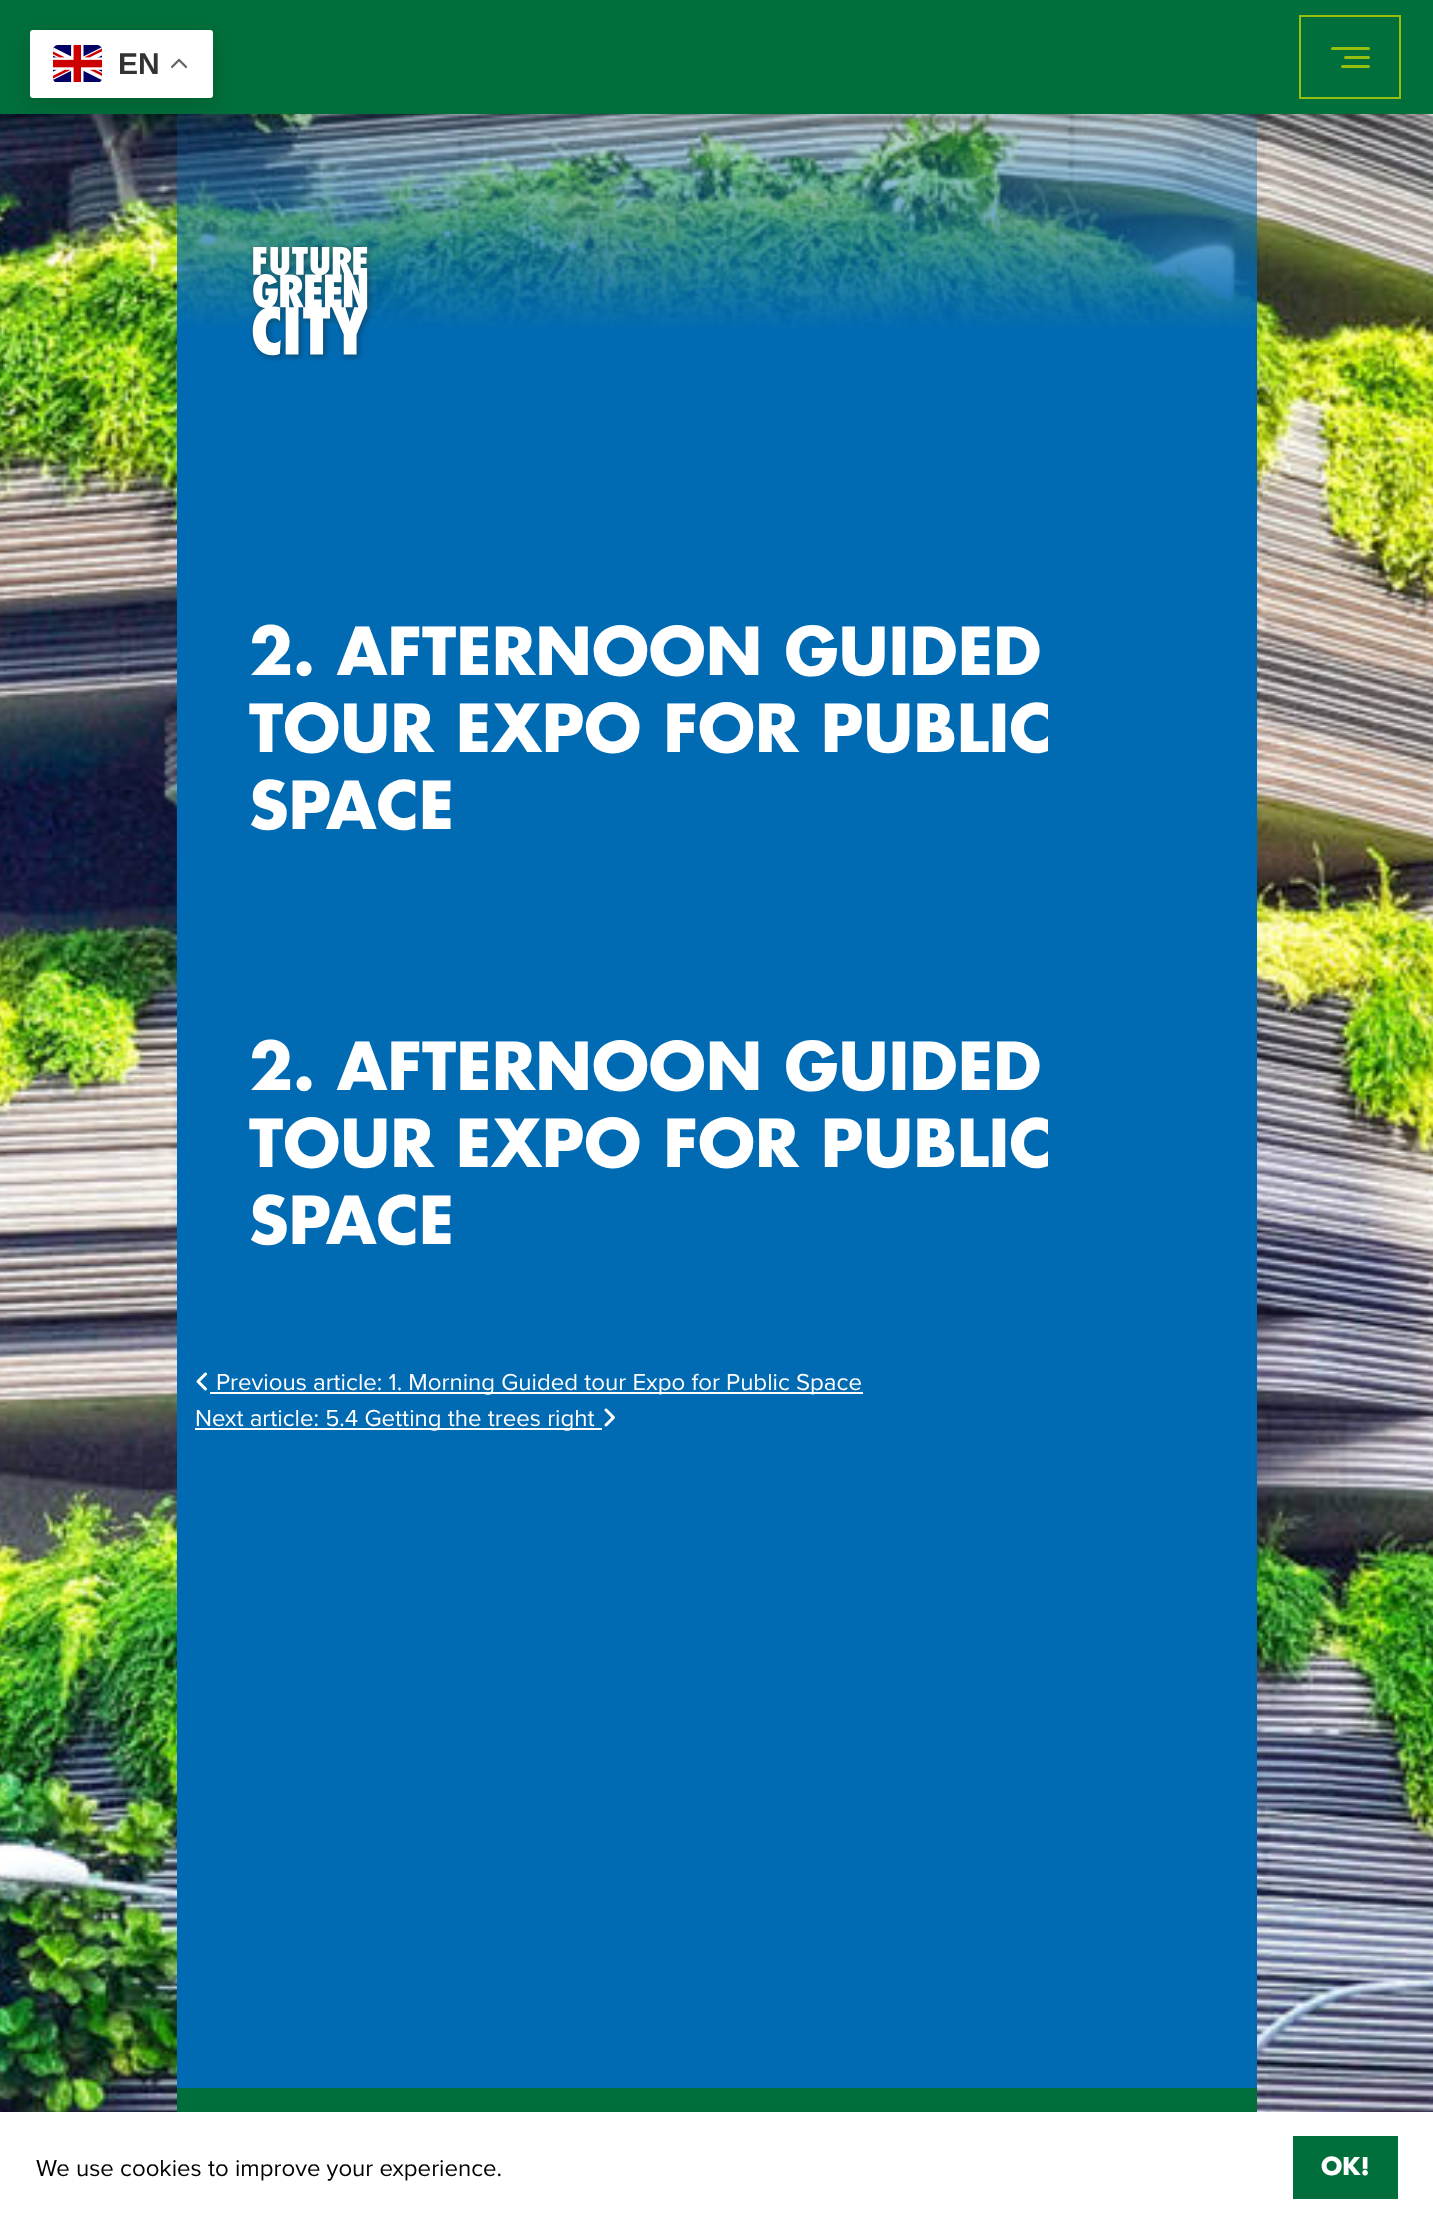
(async () => {
    const canvas = document.querySelector("canvas");
    canvas.width = 1433;
    canvas.height = 2222;
    const context = canvas.getContext("2d");
    context.miterLimit = 4;
    context.fontKerning = "normal";
    function write(s, x, y, font, color) {
        context.font = font;
        context.fillStyle = color;
        context.fillText(s, x, y);
    }
    function block(x, y, w, h, color) {
        context.fillStyle = color;
        context.fillRect(x, y, w, h);
    }
    function card(x, y, w, h, r, color) {
        context.fillStyle = color;
        context.beginPath();
        context.roundRect(x, y, w, h, r);
        context.fill();
    }
    async function photo(src, x, y, w, h) {
        const img = new Image();
        img.src = src;
        await img.decode();
        context.drawImage(img, x, y, w, h);
    }

    block(0, 0, 1433, 2222, "rgb(255, 255, 255)");
    await photo("media/3.png", 0, 114, 1433, 1998);
    context.fillStyle = "rgba(0, 0, 0, 0.15)";
    context.filter = "blur(12px)";
    context.beginPath();
    context.rect(0, 12, 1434, 114);
    context.fill();
    context.filter = "none";
    block(0, 0, 1433, 114, "rgb(0, 111, 59)");
    context.strokeStyle = "rgb(151, 191, 13)";
    context.lineWidth = 2;
    context.strokeRect(1300, 16, 100, 82);
    card(1331, 47, 39, 3, 1.5, "rgb(151, 191, 13)");
    card(1344, 56, 26, 3, 1.5, "rgb(151, 191, 13)");
    card(1341, 65, 29, 3, 1.5, "rgb(151, 191, 13)");
    context.fillStyle = "rgba(0, 0, 0, 0.15)";
    context.filter = "blur(11px)";
    context.beginPath();
    context.roundRect(30, 38, 183, 67, 3);
    context.fill();
    context.filter = "none";
    card(30, 30, 183, 68, 3, "rgb(255, 255, 255)");
    await photo("media/1.png", 53, 45, 49, 38);
    write("EN", 118, 74, "bold 30px Liberation Sans", "rgb(51, 51, 51)");
    await photo("media/2.png", 171, 58, 17, 11);
    await photo("media/4.png", 250, 245, 123, 117);
    write("2. AFTERNOON GUIDED", 249, 675, "bold 64.25px Futura", "rgb(255, 255, 255)");
    write("TOUR EXPO FOR PUBLIC", 249, 752, "bold 64.25px Futura", "rgb(255, 255, 255)");
    write("SPACE", 249, 829, "bold 64.25px Futura", "rgb(255, 255, 255)");
    write("2. AFTERNOON GUIDED", 249, 1090, "bold 64.25px Futura", "rgb(255, 255, 255)");
    write("TOUR EXPO FOR PUBLIC", 249, 1167, "bold 64.25px Futura", "rgb(255, 255, 255)");
    write("SPACE", 249, 1244, "bold 64.25px Futura", "rgb(255, 255, 255)");
    await photo("media/5.png", 196, 1372, 11, 19);
    block(210, 1392, 653, 2, "rgb(255, 255, 255)");
    write("Previous article: 1. Morning Guided tour Expo for Public Space", 216, 1390, "24px Proxima Nova", "rgb(255, 255, 255)");
    block(195, 1428, 399, 2, "rgb(255, 255, 255)");
    write("Next article: 5.4 Getting the trees right", 195, 1426, "24px Proxima Nova", "rgb(255, 255, 255)");
    block(594, 1428, 8, 2, "rgb(255, 255, 255)");
    await photo("media/6.png", 604, 1408, 11, 19);
    block(177, 2088, 1080, 24, "rgb(0, 111, 59)");
    context.fillStyle = "rgba(0, 0, 0, 0.15)";
    context.filter = "blur(12px)";
    context.beginPath();
    context.rect(0, 2124, 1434, 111);
    context.fill();
    context.filter = "none";
    block(0, 2112, 1433, 110, "rgb(255, 255, 255)");
    write("We use cookies to improve your experience.", 36, 2176, "24px Proxima Nova", "rgb(0, 0, 0)");
    block(1293, 2136, 105, 63, "rgb(0, 111, 59)");
    write("OK!", 1321, 2175, "bold 24px Futura", "rgb(255, 255, 255)");
})();
